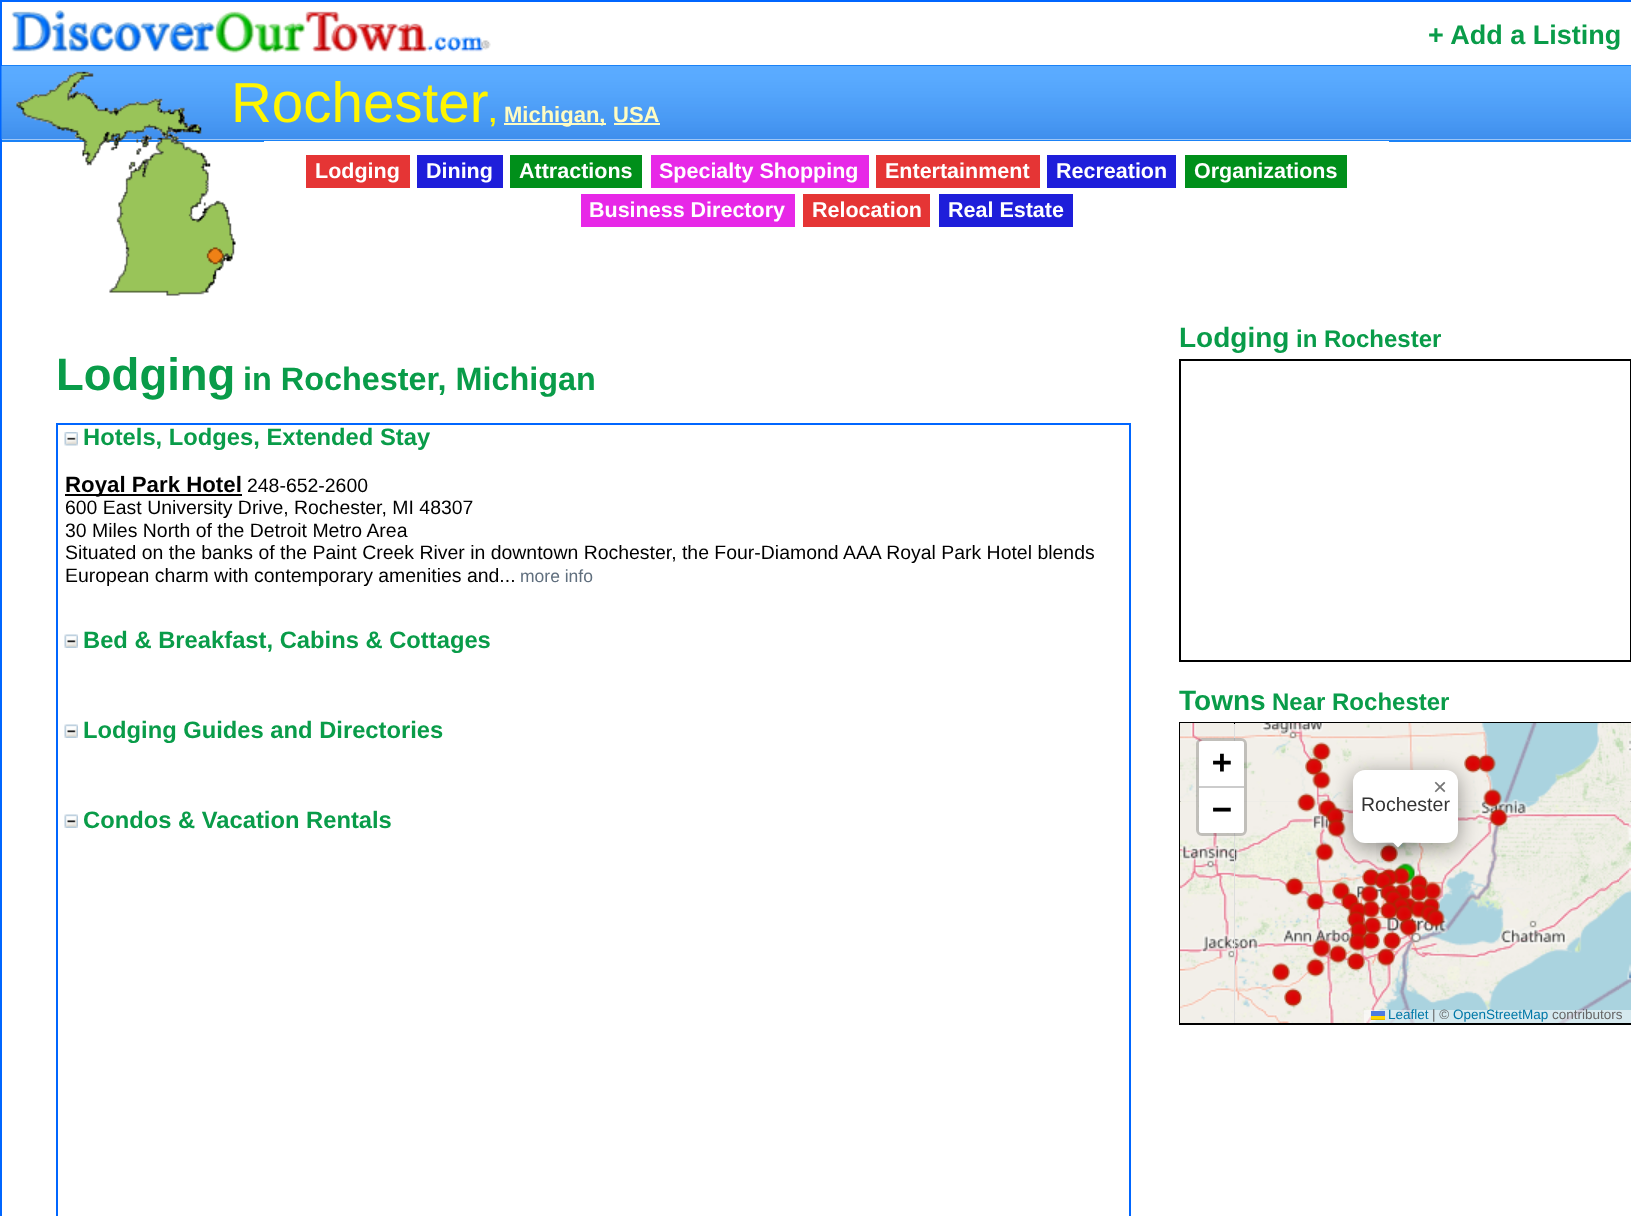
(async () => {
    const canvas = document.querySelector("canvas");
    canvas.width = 1631;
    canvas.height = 1216;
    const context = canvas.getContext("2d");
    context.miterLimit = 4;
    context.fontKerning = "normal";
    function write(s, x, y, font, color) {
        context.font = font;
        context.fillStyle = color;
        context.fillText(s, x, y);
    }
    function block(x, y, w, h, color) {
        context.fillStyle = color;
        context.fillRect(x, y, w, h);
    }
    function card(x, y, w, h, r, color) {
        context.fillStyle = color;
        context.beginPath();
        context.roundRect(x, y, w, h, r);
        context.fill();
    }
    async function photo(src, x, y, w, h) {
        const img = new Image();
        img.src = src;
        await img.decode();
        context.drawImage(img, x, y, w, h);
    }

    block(0, 0, 1631, 1216, "rgb(255, 255, 255)");
    context.strokeStyle = "rgb(0, 102, 255)";
    context.lineWidth = 2;
    context.strokeRect(1, 1, 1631, 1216);
    await photo("media/1.png", 11, 10, 480, 43);
    write("+ Add a Listing", 1428, 44, "bold 27px Liberation Sans", "rgb(9, 156, 73)");
    block(2, 65, 1629, 1, "rgb(26, 130, 247)");
    await photo("media/3.png", 1, 66, 1630, 74);
    write("Rochester", 231, 122, "56.5px Liberation Sans", "rgb(255, 245, 0)");
    block(2, 140, 1629, 2, "rgb(26, 130, 247)");
    await photo("media/2.png", 16, 71, 220, 225);
    write(",", 489, 122, "bold 27px Liberation Sans", "rgb(255, 245, 0)");
    block(504, 123, 102, 2, "rgb(254, 252, 194)");
    write("Michigan,", 504, 122, "bold 22px Liberation Sans", "rgb(254, 252, 194)");
    write("USA", 613, 122, "bold 22px Liberation Sans", "rgb(254, 252, 194)");
    block(614, 123, 46, 2, "rgb(254, 252, 194)");
    block(264, 141, 1125, 1, "rgb(255, 255, 255)");
    block(306, 155, 104, 33, "rgb(229, 53, 53)");
    write("Lodging", 315, 178, "bold 21.5px Liberation Sans", "rgb(255, 255, 255)");
    block(417, 155, 86, 33, "rgb(30, 30, 218)");
    write("Dining", 426, 178, "bold 21.5px Liberation Sans", "rgb(255, 255, 255)");
    block(510, 155, 132, 33, "rgb(0, 143, 26)");
    write("Attractions", 519, 178, "bold 21.5px Liberation Sans", "rgb(255, 255, 255)");
    block(651, 155, 218, 33, "rgb(231, 40, 231)");
    write("Specialty Shopping", 659, 178, "bold 21.5px Liberation Sans", "rgb(255, 255, 255)");
    block(876, 155, 164, 33, "rgb(229, 53, 53)");
    write("Entertainment", 885, 178, "bold 21.5px Liberation Sans", "rgb(255, 255, 255)");
    block(1047, 155, 129, 33, "rgb(30, 30, 218)");
    write("Recreation", 1056, 178, "bold 21.5px Liberation Sans", "rgb(255, 255, 255)");
    block(1185, 155, 162, 33, "rgb(0, 143, 26)");
    write("Organizations", 1194, 178, "bold 21.5px Liberation Sans", "rgb(255, 255, 255)");
    block(581, 194, 214, 33, "rgb(231, 40, 231)");
    write("Business Directory", 589, 217, "bold 21.5px Liberation Sans", "rgb(255, 255, 255)");
    block(803, 194, 127, 33, "rgb(229, 53, 53)");
    write("Relocation", 812, 217, "bold 21.5px Liberation Sans", "rgb(255, 255, 255)");
    block(939, 194, 134, 33, "rgb(30, 30, 218)");
    write("Real Estate", 948, 217, "bold 21.5px Liberation Sans", "rgb(255, 255, 255)");
    write("Lodging", 56, 390, "bold 45.5px Liberation Sans", "rgb(9, 156, 73)");
    write("in Rochester, Michigan", 243, 390, "bold 32.4px Liberation Sans", "rgb(9, 156, 73)");
    context.strokeRect(57, 424, 1073, 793);
    await photo("media/4.png", 64, 432, 14, 14);
    write("Hotels, Lodges, Extended Stay", 83, 445, "bold 23.75px Liberation Sans", "rgb(9, 156, 73)");
    block(65, 494, 177, 2, "rgb(0, 0, 0)");
    write("Royal Park Hotel", 65, 492, "bold 22.25px Liberation Sans", "rgb(0, 0, 0)");
    write("248-652-2600", 247, 492, "19.45px Liberation Sans", "rgb(0, 0, 0)");
    write("600 East University Drive, Rochester, MI 48307", 65, 514, "19.45px Liberation Sans", "rgb(0, 0, 0)");
    write("30 Miles North of the Detroit Metro Area", 65, 537, "19.45px Liberation Sans", "rgb(0, 0, 0)");
    write("Situated on the banks of the Paint Creek River in downtown Rochester, the Four-Diamond AAA Royal Park Hotel blends", 65, 559, "19.45px Liberation Sans", "rgb(0, 0, 0)");
    write("European charm with contemporary amenities and...", 65, 582, "19.45px Liberation Sans", "rgb(0, 0, 0)");
    write("more info", 520, 582, "17.5px Liberation Sans", "rgb(96, 111, 126)");
    await photo("media/5.png", 64, 634, 14, 14);
    write("Bed & Breakfast, Cabins & Cottages", 83, 648, "bold 23.75px Liberation Sans", "rgb(9, 156, 73)");
    await photo("media/5.png", 64, 724, 14, 14);
    write("Lodging Guides and Directories", 83, 738, "bold 23.75px Liberation Sans", "rgb(9, 156, 73)");
    await photo("media/5.png", 64, 814, 14, 14);
    write("Condos & Vacation Rentals", 83, 828, "bold 23.75px Liberation Sans", "rgb(9, 156, 73)");
    write("Lodging", 1179, 347, "bold 28px Liberation Sans", "rgb(9, 156, 73)");
    write("in Rochester", 1296, 347, "bold 24px Liberation Sans", "rgb(9, 156, 73)");
    context.strokeStyle = "rgb(0, 0, 0)";
    context.strokeRect(1180, 360, 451, 301);
    write("Towns", 1179, 710, "bold 28px Liberation Sans", "rgb(9, 156, 73)");
    write("Near Rochester", 1272, 710, "bold 24px Liberation Sans", "rgb(9, 156, 73)");
    context.fillStyle = "rgb(221, 221, 221)";
    context.beginPath();
    context.rect(1180, 723, 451, 301);
    context.fill();
    context.stroke();
    await photo("media/6.png", 1180, 723, 54, 78);
    await photo("media/7.png", 1235, 723, 384, 78);
    await photo("media/9.png", 1180, 801, 54, 222);
    await photo("media/10.png", 1235, 800, 384, 223);
    context.beginPath();
    context.roundRect(1197.5, 739.5, 48, 95, 4.5);
    context.strokeStyle = "rgba(0, 0, 0, 0.2)";
    context.lineWidth = 3;
    context.stroke();
    context.fillStyle = "rgb(255, 255, 255)";
    context.beginPath();
    context.roundRect(1199, 741, 45, 47, [3, 3, 0, 0]);
    context.fill();
    block(1199, 786, 45, 2, "rgb(204, 204, 204)");
    write("+", 1212, 773, "bold 33px DejaVu Sans Mono", "rgb(0, 0, 0)");
    context.fillStyle = "rgb(255, 255, 255)";
    context.beginPath();
    context.roundRect(1199, 788, 45, 45, [0, 0, 3, 3]);
    context.fill();
    write("−", 1212, 820, "bold 33px DejaVu Sans Mono", "rgb(0, 0, 0)");
    await photo("media/11.png", 1619, 801, 12, 222);
    block(1364, 1010, 267, 13, "rgba(255, 255, 255, 0.5)");
    write("Leaflet", 1388, 1019, "13.5px Liberation Sans", "rgb(0, 120, 168)");
    block(1371, 1011, 14, 5, "rgb(76, 123, 225)");
    block(1371, 1016, 14, 3, "rgb(255, 213, 0)");
    block(1371, 1019, 14, 1, "rgb(224, 188, 0)");
    write("| ©", 1432, 1019, "13.5px Liberation Sans", "rgb(102, 102, 102)");
    write("OpenStreetMap", 1453, 1019, "13.5px Liberation Sans", "rgb(0, 120, 168)");
    write("contributors", 1552, 1019, "13.5px Liberation Sans", "rgb(102, 102, 102)");
    await photo("media/8.png", 1619, 723, 12, 78);
    await photo("media/12.png", 1312, 742, 19, 19);
    await photo("media/13.png", 1305, 757, 18, 19);
    await photo("media/15.png", 1478, 754, 18, 19);
    await photo("media/14.png", 1464, 754, 18, 19);
    await photo("media/16.png", 1312, 770, 19, 20);
    await photo("media/17.png", 1297, 793, 19, 19);
    await photo("media/18.png", 1318, 799, 19, 19);
    await photo("media/19.png", 1483, 788, 19, 20);
    await photo("media/20.png", 1326, 806, 18, 19);
    await photo("media/21.png", 1489, 808, 19, 19);
    await photo("media/22.png", 1327, 818, 19, 20);
    await photo("media/23.png", 1315, 842, 19, 20);
    await photo("media/24.png", 1380, 844, 18, 19);
    await photo("media/25.png", 1396, 863, 19, 20);
    await photo("media/26.png", 1362, 868, 18, 19);
    await photo("media/28.png", 1393, 866, 17, 20);
    await photo("media/27.png", 1380, 868, 18, 19);
    await photo("media/29.png", 1285, 877, 19, 19);
    await photo("media/30.png", 1332, 881, 18, 20);
    await photo("media/31.png", 1374, 871, 18, 19);
    await photo("media/32.png", 1410, 874, 18, 16);
    await photo("media/33.png", 1423, 881, 19, 20);
    await photo("media/34.png", 1360, 885, 19, 19);
    await photo("media/36.png", 1394, 883, 18, 18);
    await photo("media/35.png", 1380, 883, 18, 19);
    await photo("media/37.png", 1410, 883, 18, 19);
    await photo("media/38.png", 1306, 892, 19, 19);
    await photo("media/39.png", 1341, 892, 18, 19);
    await photo("media/40.png", 1384, 889, 19, 17);
    await photo("media/41.png", 1401, 896, 17, 20);
    await photo("media/43.png", 1362, 900, 18, 19);
    await photo("media/42.png", 1348, 901, 19, 17);
    await photo("media/45.png", 1392, 897, 18, 18);
    await photo("media/44.png", 1380, 901, 18, 19);
    await photo("media/47.png", 1422, 897, 18, 16);
    await photo("media/46.png", 1410, 900, 18, 19);
    await photo("media/48.png", 1395, 904, 18, 19);
    await photo("media/49.png", 1420, 904, 19, 19);
    await photo("media/50.png", 1347, 910, 18, 18);
    await photo("media/51.png", 1363, 916, 19, 19);
    await photo("media/52.png", 1399, 917, 19, 20);
    await photo("media/53.png", 1426, 909, 19, 19);
    await photo("media/54.png", 1350, 920, 18, 19);
    await photo("media/55.png", 1362, 931, 18, 19);
    await photo("media/56.png", 1383, 931, 18, 19);
    await photo("media/57.png", 1312, 938, 19, 20);
    await photo("media/58.png", 1329, 944, 18, 20);
    await photo("media/59.png", 1348, 932, 19, 20);
    await photo("media/60.png", 1377, 947, 18, 20);
    await photo("media/61.png", 1272, 962, 18, 20);
    await photo("media/62.png", 1306, 958, 19, 19);
    await photo("media/63.png", 1347, 952, 18, 19);
    await photo("media/64.png", 1284, 988, 18, 19);
    context.fillStyle = "rgba(0, 0, 0, 0.4)";
    context.filter = "blur(10.5px)";
    context.beginPath();
    context.roundRect(1353, 774, 105, 74, 12);
    context.fill();
    context.filter = "none";
    card(1353, 770, 105, 73, 12, "rgb(255, 255, 255)");
    write("×", 1433, 795, "24px Liberation Sans", "rgb(117, 117, 117)");
    write("Rochester", 1361, 811, "19.5px Liberation Sans", "rgb(51, 51, 51)");
    context.save();
    context.beginPath();
    context.rect(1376, 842, 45, 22);
    context.clip();
    context.fillStyle = "rgba(0, 0, 0, 0.4)";
    context.filter = "blur(10.5px)";
    context.beginPath();
    context.rect(1389, 831, 18, 18);
    context.fill();
    context.filter = "none";
    context.restore();
    context.save();
    context.beginPath();
    context.rect(1376, 842, 45, 22);
    context.clip();
    context.fillStyle = "rgb(255, 255, 255)";
    context.beginPath();
    context.moveTo(1398, 822);
    context.lineTo(1410.5, 835);
    context.lineTo(1398, 847.5);
    context.lineTo(1385.5, 835);
    context.closePath();
    context.fill();
    context.restore();
})();
